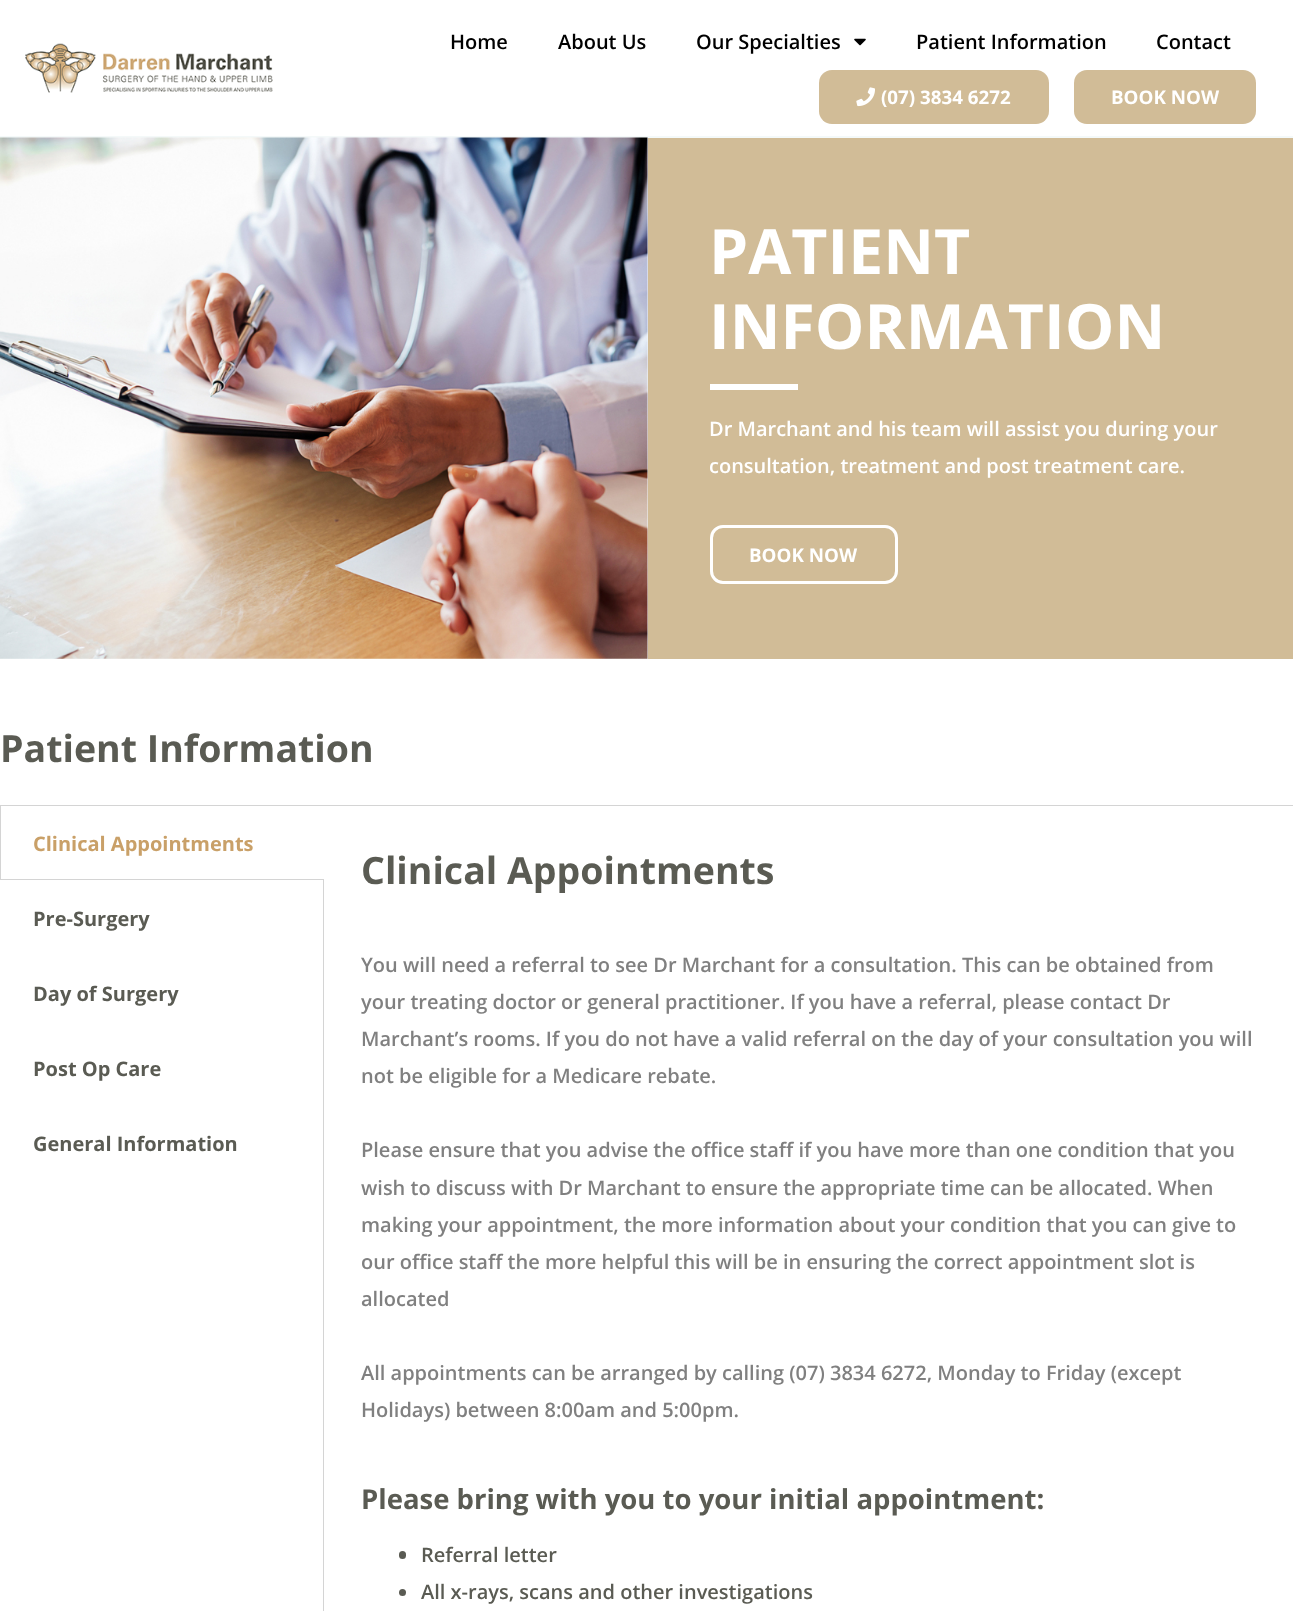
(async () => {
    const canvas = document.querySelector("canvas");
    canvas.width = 1293;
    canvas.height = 1611;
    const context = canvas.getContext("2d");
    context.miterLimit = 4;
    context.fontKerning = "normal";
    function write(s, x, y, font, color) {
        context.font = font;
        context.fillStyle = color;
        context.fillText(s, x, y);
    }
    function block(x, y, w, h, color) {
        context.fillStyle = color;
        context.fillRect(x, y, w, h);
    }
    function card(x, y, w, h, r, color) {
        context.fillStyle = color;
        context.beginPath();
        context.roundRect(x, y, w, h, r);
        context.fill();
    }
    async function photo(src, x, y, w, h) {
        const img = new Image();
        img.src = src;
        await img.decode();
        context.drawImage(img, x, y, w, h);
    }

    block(0, 0, 1293, 1611, "rgb(244, 249, 249)");
    block(0, 0, 1293, 136, "rgb(255, 255, 255)");
    await photo("media/1.png", 25, 43, 248, 50);
    write("Home", 450, 49, "600 20px Open Sans", "rgb(0, 0, 0)");
    write("About Us", 558, 49, "600 20px Open Sans", "rgb(0, 0, 0)");
    write("Our Specialties", 696, 49, "600 20px Open Sans", "rgb(0, 0, 0)");
    await photo("media/2.png", 854, 38, 12, 8);
    write("Patient Information", 916, 49, "600 20px Open Sans", "rgb(0, 0, 0)");
    write("Contact", 1156, 49, "600 20px Open Sans", "rgb(0, 0, 0)");
    card(819, 70, 230, 54, 13, "rgb(209, 188, 151)");
    await photo("media/3.png", 856, 87, 19, 20);
    write("(07) 3834 6272", 881, 104, "bold 18.75px Open Sans", "rgb(255, 255, 255)");
    card(1074, 70, 182, 54, 13, "rgb(209, 188, 151)");
    write("BOOK NOW", 1111, 104, "bold 18.75px Open Sans", "rgb(255, 255, 255)");
    await photo("media/4.png", 0, 137, 648, 522);
    block(648, 138, 645, 521, "rgb(209, 188, 151)");
    write("PATIENT", 709, 274, "bold 62.5px Open Sans", "rgb(255, 255, 255)");
    write("INFORMATION", 709, 349, "bold 62.5px Open Sans", "rgb(255, 255, 255)");
    block(710, 384, 88, 6, "rgb(255, 255, 255)");
    write("Dr Marchant and his team will assist you during your", 709, 436, "600 20px Open Sans", "rgb(255, 255, 255)");
    write("consultation, treatment and post treatment care.", 709, 473, "600 20px Open Sans", "rgb(255, 255, 255)");
    context.beginPath();
    context.roundRect(711.5, 526.5, 185, 56, 11.5);
    context.strokeStyle = "rgb(255, 255, 255)";
    context.lineWidth = 3;
    context.stroke();
    write("BOOK NOW", 749, 562, "bold 18.75px Open Sans", "rgb(255, 255, 255)");
    block(0, 659, 1293, 952, "rgb(255, 255, 255)");
    write("Patient Information", 0, 762, "bold 37.5px Open Sans", "rgb(90, 91, 83)");
    block(0, 879, 324, 1, "rgb(212, 212, 212)");
    block(0, 805, 1293, 1, "rgb(212, 212, 212)");
    block(0, 805, 1, 75, "rgb(212, 212, 212)");
    write("Clinical Appointments", 33, 851, "bold 20px Open Sans", "rgb(201, 160, 104)");
    block(323, 879, 1, 732, "rgb(212, 212, 212)");
    write("Pre-Surgery", 33, 926, "bold 20px Open Sans", "rgb(90, 91, 83)");
    write("Day of Surgery", 33, 1001, "bold 20px Open Sans", "rgb(90, 91, 83)");
    write("Post Op Care", 33, 1076, "bold 20px Open Sans", "rgb(90, 91, 83)");
    write("General Information", 33, 1151, "bold 20px Open Sans", "rgb(90, 91, 83)");
    write("Clinical Appointments", 361, 884, "bold 37.5px Open Sans", "rgb(90, 91, 83)");
    write("You will need a referral to see Dr Marchant for a consultation. This can be obtained from", 361, 972, "600 20px Open Sans", "rgb(128, 128, 128)");
    write("your treating doctor or general practitioner. If you have a referral, please contact Dr", 361, 1009, "600 20px Open Sans", "rgb(128, 128, 128)");
    write("Marchant’s rooms. If you do not have a valid referral on the day of your consultation you will", 361, 1046, "600 20px Open Sans", "rgb(128, 128, 128)");
    write("not be eligible for a Medicare rebate.", 361, 1083, "600 20px Open Sans", "rgb(128, 128, 128)");
    write("Please ensure that you advise the office staff if you have more than one condition that you", 361, 1157, "600 20px Open Sans", "rgb(128, 128, 128)");
    write("wish to discuss with Dr Marchant to ensure the appropriate time can be allocated. When", 361, 1195, "600 20px Open Sans", "rgb(128, 128, 128)");
    write("making your appointment, the more information about your condition that you can give to", 361, 1232, "600 20px Open Sans", "rgb(128, 128, 128)");
    write("our office staff the more helpful this will be in ensuring the correct appointment slot is", 361, 1269, "600 20px Open Sans", "rgb(128, 128, 128)");
    write("allocated", 361, 1306, "600 20px Open Sans", "rgb(128, 128, 128)");
    write("All appointments can be arranged by calling (07) 3834 6272, Monday to Friday (except", 361, 1380, "600 20px Open Sans", "rgb(128, 128, 128)");
    write("Holidays) between 8:00am and 5:00pm.", 361, 1417, "600 20px Open Sans", "rgb(128, 128, 128)");
    write("Please bring with you to your initial appointment:", 361, 1509, "bold 27.5px Open Sans", "rgb(90, 91, 83)");
    card(399, 1551, 7, 8, 3.5, "rgb(90, 91, 83)");
    write("Referral letter", 421, 1562, "600 20px Open Sans", "rgb(90, 91, 83)");
    context.beginPath();
    context.arc(402.5, 1592.5, 3.5, 0, Math.PI * 2);
    context.fill();
    write("All x-rays, scans and other investigations", 421, 1599, "600 20px Open Sans", "rgb(90, 91, 83)");
})();
